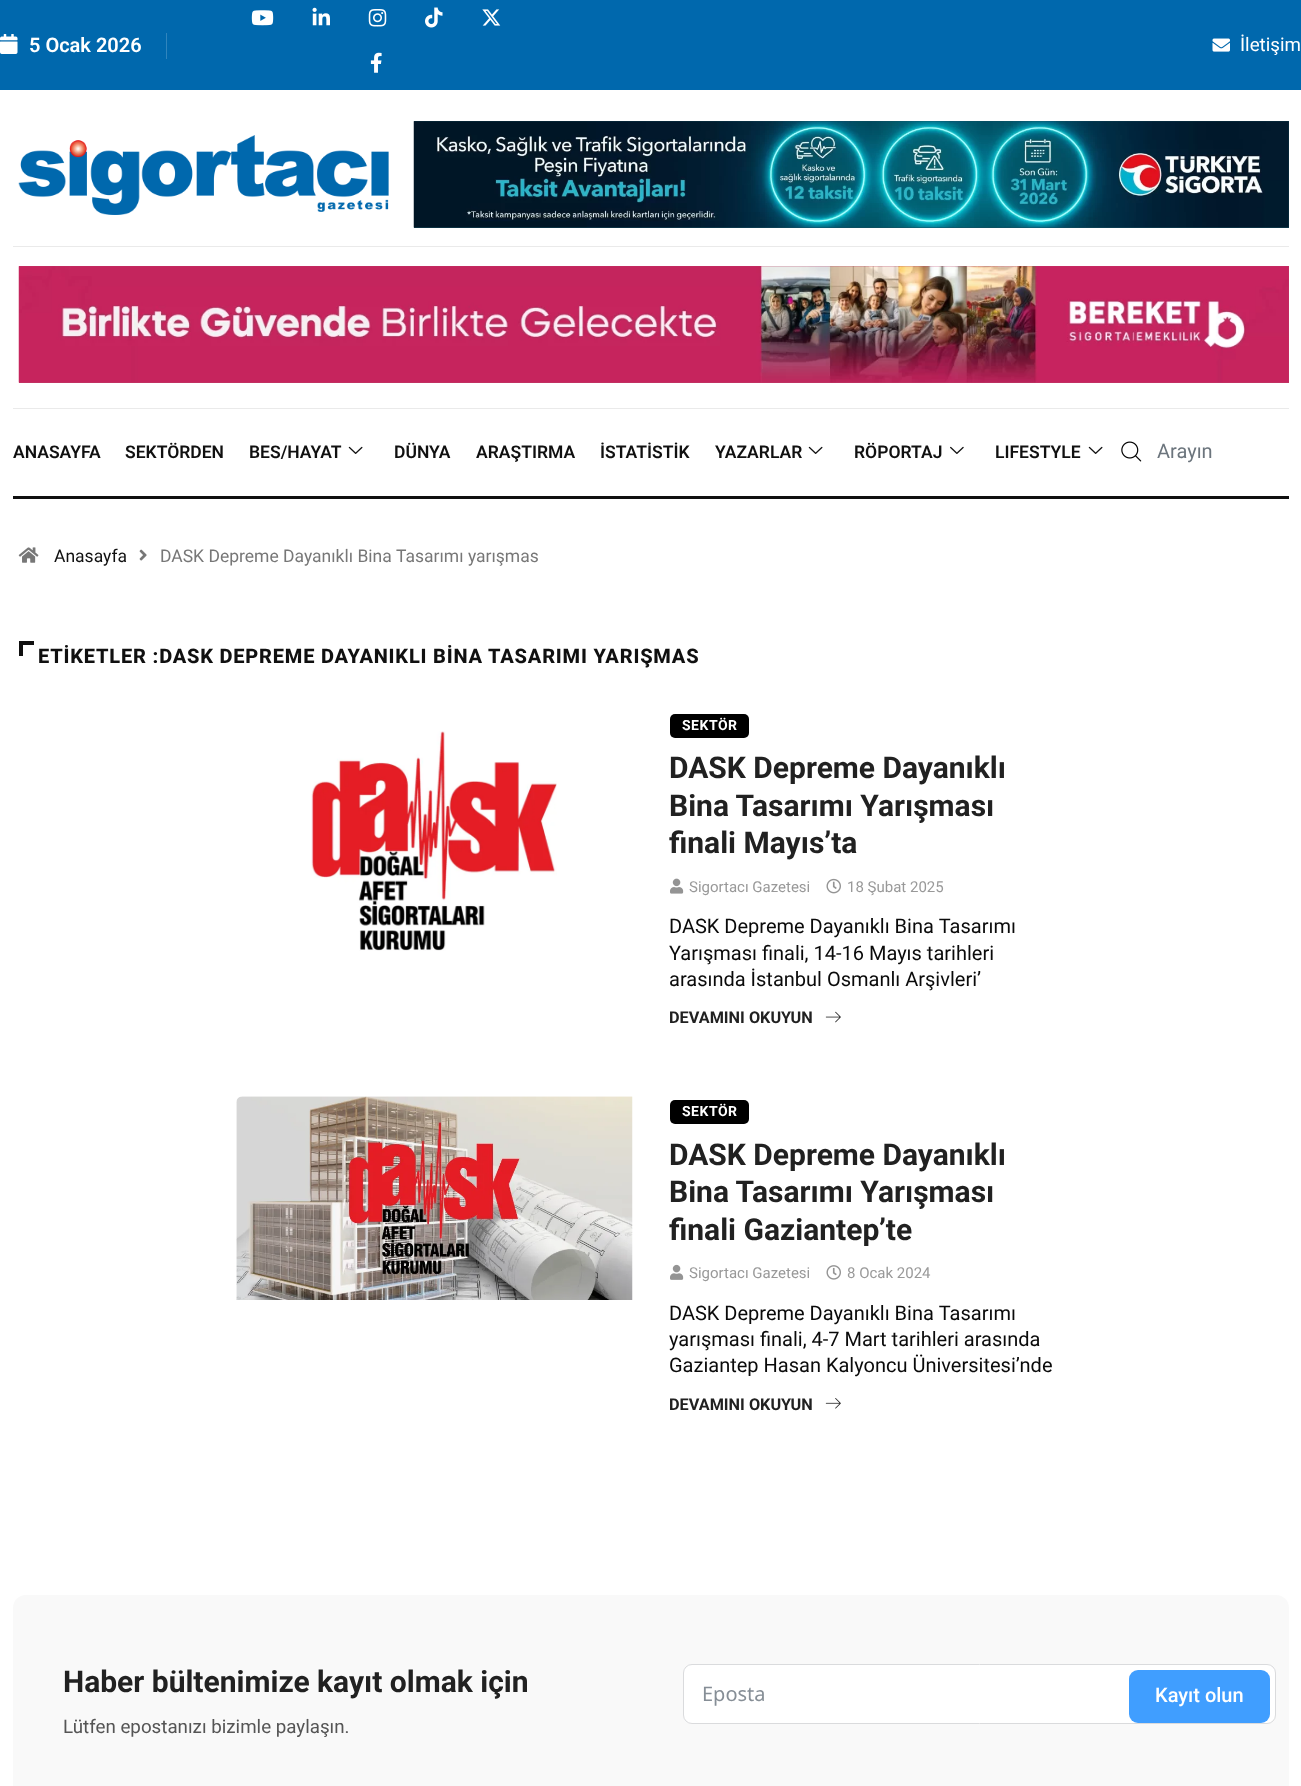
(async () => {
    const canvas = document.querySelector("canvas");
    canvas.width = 1301;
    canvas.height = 1786;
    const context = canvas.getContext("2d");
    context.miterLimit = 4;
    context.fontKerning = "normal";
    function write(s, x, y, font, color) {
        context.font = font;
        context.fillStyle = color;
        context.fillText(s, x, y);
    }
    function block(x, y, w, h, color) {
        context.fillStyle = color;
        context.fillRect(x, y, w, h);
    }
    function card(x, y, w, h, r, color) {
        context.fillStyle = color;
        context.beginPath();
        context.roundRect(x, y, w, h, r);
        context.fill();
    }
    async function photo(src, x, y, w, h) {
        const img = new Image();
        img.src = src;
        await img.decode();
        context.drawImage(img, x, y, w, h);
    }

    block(0, 0, 1301, 1786, "rgb(255, 255, 255)");
    block(0, 0, 1301, 90, "rgb(0, 104, 173)");
    block(166, 33, 1, 26, "rgb(48, 133, 189)");
    await photo("media/1.png", 0, 34, 18, 20);
    write("5 Ocak 2026", 29, 52, "600 20px Roboto", "rgb(255, 255, 255)");
    await photo("media/2.png", 251, 10, 23, 16);
    await photo("media/3.png", 312, 7, 18, 19);
    await photo("media/4.png", 368, 9, 19, 18);
    await photo("media/5.png", 425, 7, 18, 21);
    await photo("media/6.png", 482, 9, 19, 17);
    await photo("media/7.png", 370, 52, 12, 21);
    await photo("media/8.png", 1212, 38, 18, 14);
    write("İletişim", 1240, 51, "18.75px Roboto", "rgb(255, 255, 255)");
    block(13, 246, 1276, 1, "rgb(234, 234, 234)");
    await photo("media/9.png", 18, 135, 371, 80);
    block(414, 121, 875, 107, "rgb(22, 76, 94)");
    await photo("media/10.png", 413, 121, 876, 107);
    block(13, 408, 1276, 1, "rgb(234, 234, 234)");
    block(19, 266, 1270, 117, "rgb(188, 63, 105)");
    await photo("media/11.png", 18, 266, 1271, 117);
    block(13, 496, 1276, 3, "rgb(16, 16, 16)");
    write("ANASAYFA", 13, 458, "600 17.5px Roboto", "rgb(16, 16, 16)");
    write("SEKTÖRDEN", 125, 458, "600 17.5px Roboto", "rgb(16, 16, 16)");
    write("BES/HAYAT", 249, 458, "600 17.5px Roboto", "rgb(16, 16, 16)");
    await photo("media/12.png", 348, 446, 15, 8);
    write("DÜNYA", 394, 458, "600 17.5px Roboto", "rgb(16, 16, 16)");
    write("ARAŞTIRMA", 476, 458, "600 17.5px Roboto", "rgb(16, 16, 16)");
    write("İSTATİSTİK", 600, 458, "600 17.5px Roboto", "rgb(16, 16, 16)");
    write("YAZARLAR", 715, 458, "600 17.5px Roboto", "rgb(16, 16, 16)");
    await photo("media/12.png", 808, 446, 15, 8);
    write("RÖPORTAJ", 854, 458, "600 17.5px Roboto", "rgb(16, 16, 16)");
    await photo("media/13.png", 950, 446, 14, 8);
    write("LIFESTYLE", 995, 458, "600 17.5px Roboto", "rgb(16, 16, 16)");
    await photo("media/12.png", 1088, 446, 15, 8);
    await photo("media/14.png", 1121, 441, 21, 21);
    write("Arayın", 1157, 458, "20px Roboto", "rgb(108, 117, 125)");
    await photo("media/15.png", 18, 547, 21, 16);
    write("Anasayfa", 54, 562, "17.5px Roboto", "rgb(16, 16, 16)");
    await photo("media/16.png", 139, 549, 8, 12);
    write("DASK Depreme Dayanıklı Bina Tasarımı yarışmas", 160, 562, "17.5px Roboto", "rgb(119, 119, 119)");
    block(19, 641, 4, 15, "rgb(16, 16, 16)");
    block(19, 641, 15, 4, "rgb(16, 16, 16)");
    context.letterSpacing = "0.8px";
    write("ETİKETLER :DASK DEPREME DAYANIKLI BİNA TASARIMI YARIŞMAS", 38, 663, "800 20px Roboto", "rgb(16, 16, 16)");
    await photo("media/17.png", 311, 731, 246, 220);
    card(670, 714, 79, 24, 5, "rgb(0, 0, 0)");
    context.letterSpacing = "0.5px";
    write("SEKTÖR", 682, 730, "bold 14px Roboto", "rgb(255, 255, 255)");
    context.letterSpacing = "0px";
    write("DASK Depreme Dayanıklı", 669, 778, "bold 30px Roboto", "rgb(33, 33, 33)");
    write("Bina Tasarımı Yarışması", 669, 816, "bold 30px Roboto", "rgb(33, 33, 33)");
    write("finali Mayıs’ta", 669, 853, "bold 30px Roboto", "rgb(33, 33, 33)");
    await photo("media/18.png", 670, 878, 14, 16);
    write("Sigortacı Gazetesi", 689, 892, "15px Roboto", "rgb(153, 153, 153)");
    await photo("media/19.png", 826, 878, 15, 16);
    write("18 Şubat 2025", 847, 892, "15px Roboto", "rgb(153, 153, 153)");
    write("DASK Depreme Dayanıklı Bina Tasarımı", 669, 933, "20px Roboto", "rgb(10, 10, 10)");
    write("Yarışması finali, 14-16 Mayıs tarihleri", 669, 960, "20px Roboto", "rgb(10, 10, 10)");
    write("arasında İstanbul Osmanlı Arşivleri’", 669, 986, "20px Roboto", "rgb(10, 10, 10)");
    write("DEVAMINI OKUYUN", 669, 1023, "bold 16.25px Roboto", "rgb(33, 33, 33)");
    await photo("media/20.png", 825, 1011, 16, 12);
    await photo("media/21.png", 236, 1096, 397, 204);
    card(670, 1100, 79, 24, 5, "rgb(0, 0, 0)");
    context.letterSpacing = "0.5px";
    write("SEKTÖR", 682, 1116, "bold 14px Roboto", "rgb(255, 255, 255)");
    context.letterSpacing = "0px";
    write("DASK Depreme Dayanıklı", 669, 1165, "bold 30px Roboto", "rgb(33, 33, 33)");
    write("Bina Tasarımı Yarışması", 669, 1202, "bold 30px Roboto", "rgb(33, 33, 33)");
    write("finali Gaziantep’te", 669, 1240, "bold 30px Roboto", "rgb(33, 33, 33)");
    await photo("media/22.png", 670, 1264, 14, 16);
    write("Sigortacı Gazetesi", 689, 1278, "15px Roboto", "rgb(153, 153, 153)");
    await photo("media/23.png", 826, 1265, 15, 15);
    write("8 Ocak 2024", 847, 1278, "15px Roboto", "rgb(153, 153, 153)");
    write("DASK Depreme Dayanıklı Bina Tasarımı", 669, 1320, "20px Roboto", "rgb(10, 10, 10)");
    write("yarışması finali, 4-7 Mart tarihleri arasında", 669, 1346, "20px Roboto", "rgb(10, 10, 10)");
    write("Gaziantep Hasan Kalyoncu Üniversitesi’nde", 669, 1372, "20px Roboto", "rgb(10, 10, 10)");
    write("DEVAMINI OKUYUN", 669, 1410, "bold 16.25px Roboto", "rgb(33, 33, 33)");
    await photo("media/24.png", 825, 1398, 16, 11);
    card(13, 1595, 1276, 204, 13, "rgb(249, 249, 249)");
    write("Haber bültenimize kayıt olmak için", 63, 1692, "bold 30px Roboto", "rgb(33, 33, 33)");
    write("Lütfen epostanızı bizimle paylaşın.", 63, 1733, "18.75px Roboto", "rgb(85, 85, 85)");
    context.fillStyle = "rgb(255, 255, 255)";
    context.beginPath();
    context.roundRect(683.5, 1664.5, 592, 59, 8.5);
    context.fill();
    context.strokeStyle = "rgb(218, 219, 221)";
    context.stroke();
    write("Eposta", 702, 1701, "20px Noto Sans", "rgb(134, 142, 150)");
    card(1129, 1670, 141, 53, 9, "rgb(64, 158, 255)");
    write("Kayıt olun", 1155, 1702, "500 20px Roboto", "rgb(255, 255, 255)");
})();
